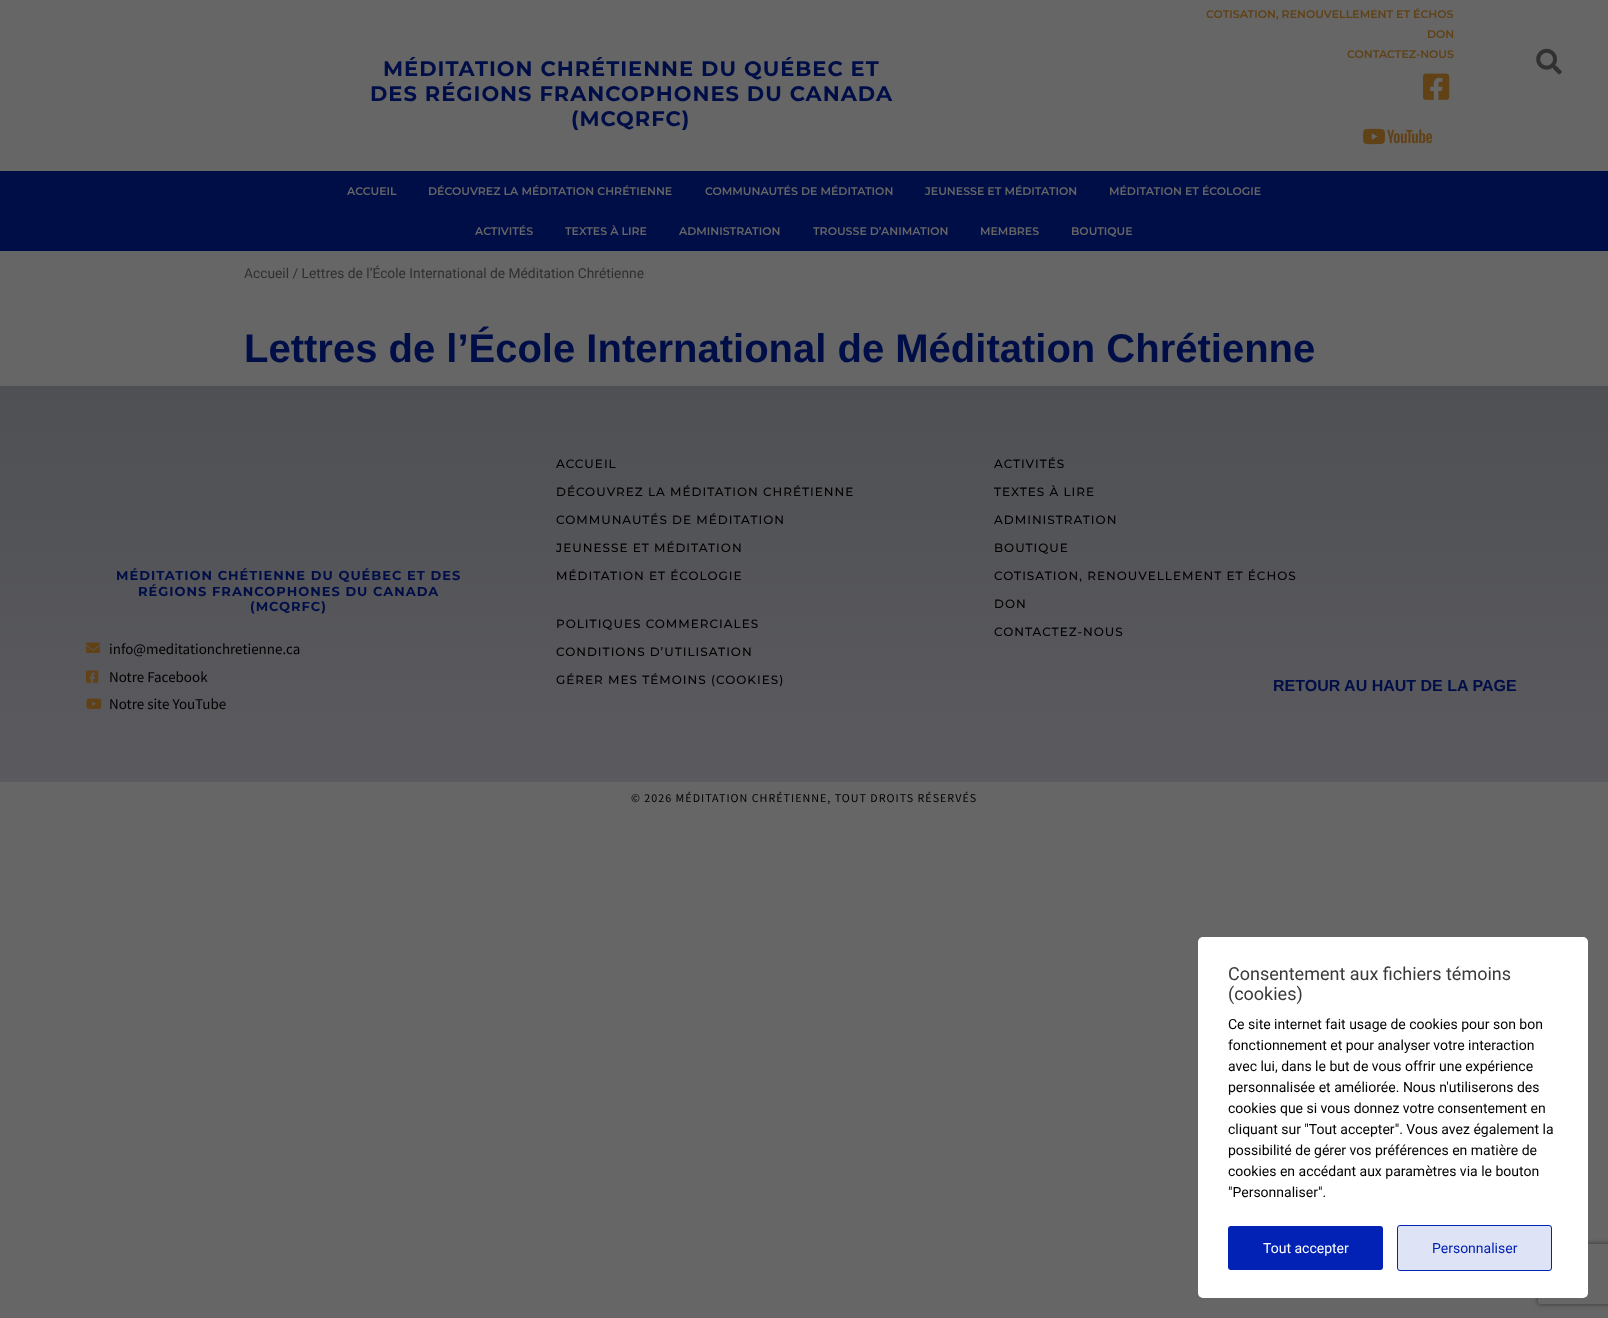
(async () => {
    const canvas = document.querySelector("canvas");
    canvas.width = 1608;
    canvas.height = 1318;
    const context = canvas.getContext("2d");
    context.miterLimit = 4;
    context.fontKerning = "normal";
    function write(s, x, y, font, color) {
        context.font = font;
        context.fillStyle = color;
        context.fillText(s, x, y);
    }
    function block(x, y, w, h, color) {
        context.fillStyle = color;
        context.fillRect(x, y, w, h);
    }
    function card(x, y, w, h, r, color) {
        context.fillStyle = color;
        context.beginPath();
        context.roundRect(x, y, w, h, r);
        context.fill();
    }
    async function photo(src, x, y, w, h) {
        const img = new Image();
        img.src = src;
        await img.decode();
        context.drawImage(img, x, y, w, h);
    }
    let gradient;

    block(0, 0, 1608, 1318, "rgb(102, 102, 102)");
    context.letterSpacing = "1px";
    write("MÉDITATION CHRÉTIENNE DU QUÉBEC ET", 383, 76, "bold 21px Montserrat", "rgb(0, 14, 72)");
    write("DES RÉGIONS FRANCOPHONES DU CANADA", 370, 101, "bold 21px Montserrat", "rgb(0, 14, 72)");
    write("(MCQRFC)", 571, 126, "bold 21px Montserrat", "rgb(0, 14, 72)");
    context.letterSpacing = "0px";
    write("COTISATION, RENOUVELLEMENT ET ÉCHOS", 1206, 18, "600 11px Montserrat", "rgb(97, 66, 23)");
    write("DON", 1427, 38, "600 11px Montserrat", "rgb(97, 66, 23)");
    write("CONTACTEZ-NOUS", 1347, 58, "600 11px Montserrat", "rgb(97, 66, 23)");
    await photo("media/1.png", 1423, 73, 27, 27);
    await photo("media/2.png", 1363, 128, 69, 17);
    await photo("media/3.png", 1536, 48, 26, 27);
    block(0, 171, 1608, 80, "rgb(0, 14, 72)");
    write("ACCUEIL", 347, 195, "600 11px Montserrat", "rgb(102, 102, 102)");
    write("DÉCOUVREZ LA MÉDITATION CHRÉTIENNE", 428, 195, "600 11px Montserrat", "rgb(102, 102, 102)");
    write("COMMUNAUTÉS DE MÉDITATION", 705, 195, "600 11px Montserrat", "rgb(102, 102, 102)");
    write("JEUNESSE ET MÉDITATION", 925, 195, "600 11px Montserrat", "rgb(102, 102, 102)");
    write("MÉDITATION ET ÉCOLOGIE", 1109, 195, "600 11px Montserrat", "rgb(102, 102, 102)");
    write("ACTIVITÉS", 475, 235, "600 11px Montserrat", "rgb(102, 102, 102)");
    write("TEXTES À LIRE", 565, 235, "600 11px Montserrat", "rgb(102, 102, 102)");
    write("ADMINISTRATION", 679, 235, "600 11px Montserrat", "rgb(102, 102, 102)");
    write("TROUSSE D’ANIMATION", 813, 235, "600 11px Montserrat", "rgb(102, 102, 102)");
    write("MEMBRES", 980, 235, "600 11px Montserrat", "rgb(102, 102, 102)");
    write("BOUTIQUE", 1071, 235, "600 11px Montserrat", "rgb(102, 102, 102)");
    write("Accueil / Lettres de l’École International de Méditation Chrétienne", 244, 278, "13.8px Roboto", "rgb(48, 48, 48)");
    write("Lettres de l’École International de Méditation Chrétienne", 244, 362, "bold 40px Liberation Sans", "rgb(0, 14, 72)");
    gradient = context.createLinearGradient(804, 386, 804, 782);
    gradient.addColorStop(0, "rgb(79, 80, 84)");
    gradient.addColorStop(1, "rgb(90, 90, 95)");
    context.fillStyle = gradient;
    context.fillRect(0, 386, 1608, 396);
    context.letterSpacing = "1px";
    write("MÉDITATION CHÉTIENNE DU QUÉBEC ET DES", 116, 580, "bold 13px Montserrat", "rgb(0, 14, 72)");
    write("RÉGIONS FRANCOPHONES DU CANADA", 138, 596, "bold 13px Montserrat", "rgb(0, 14, 72)");
    write("(MCQRFC)", 250, 611, "bold 13px Montserrat", "rgb(0, 14, 72)");
    await photo("media/4.png", 86, 642, 14, 11);
    context.letterSpacing = "0px";
    write("info@meditationchretienne.ca", 109, 654, "15px Source Sans Pro", "rgb(0, 0, 0)");
    await photo("media/5.png", 86, 670, 13, 13);
    write("Notre Facebook", 109, 682, "15px Source Sans Pro", "rgb(0, 0, 0)");
    await photo("media/6.png", 86, 698, 16, 11);
    write("Notre site YouTube", 109, 709, "15px Source Sans Pro", "rgb(0, 0, 0)");
    context.letterSpacing = "1px";
    write("ACCUEIL", 556, 468, "500 12px Montserrat", "rgb(0, 0, 0)");
    write("DÉCOUVREZ LA MÉDITATION CHRÉTIENNE", 556, 496, "500 12px Montserrat", "rgb(0, 0, 0)");
    write("COMMUNAUTÉS DE MÉDITATION", 556, 524, "500 12px Montserrat", "rgb(0, 0, 0)");
    write("JEUNESSE ET MÉDITATION", 556, 552, "500 12px Montserrat", "rgb(0, 0, 0)");
    write("MÉDITATION ET ÉCOLOGIE", 556, 580, "500 12px Montserrat", "rgb(0, 0, 0)");
    write("POLITIQUES COMMERCIALES", 556, 628, "500 12px Montserrat", "rgb(0, 0, 0)");
    write("CONDITIONS D’UTILISATION", 556, 656, "500 12px Montserrat", "rgb(0, 0, 0)");
    write("GÉRER MES TÉMOINS (COOKIES)", 556, 684, "500 12px Montserrat", "rgb(0, 0, 0)");
    write("ACTIVITÉS", 994, 468, "500 12px Montserrat", "rgb(0, 0, 0)");
    write("TEXTES À LIRE", 994, 496, "500 12px Montserrat", "rgb(0, 0, 0)");
    write("ADMINISTRATION", 994, 524, "500 12px Montserrat", "rgb(0, 0, 0)");
    write("BOUTIQUE", 994, 552, "500 12px Montserrat", "rgb(0, 0, 0)");
    write("COTISATION, RENOUVELLEMENT ET ÉCHOS", 994, 580, "500 12px Montserrat", "rgb(0, 0, 0)");
    write("DON", 994, 608, "500 12px Montserrat", "rgb(0, 0, 0)");
    write("CONTACTEZ-NOUS", 994, 636, "500 12px Montserrat", "rgb(0, 0, 0)");
    context.letterSpacing = "0px";
    write("RETOUR AU HAUT DE LA PAGE", 1273, 691, "bold 16px Liberation Sans", "rgb(0, 14, 72)");
    context.letterSpacing = "1px";
    write("© 2026 MÉDITATION CHRÉTIENNE, TOUT DROITS RÉSERVÉS", 631, 802, "12px Source Sans Pro", "rgb(0, 0, 0)");
    context.save();
    context.beginPath();
    context.moveTo(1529, 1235);
    context.lineTo(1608, 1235);
    context.lineTo(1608, 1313);
    context.lineTo(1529, 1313);
    context.closePath();
    context.moveTo(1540, 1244);
    context.lineTo(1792, 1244);
    context.bezierCurveTo(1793, 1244, 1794, 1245, 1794, 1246);
    context.lineTo(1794, 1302);
    context.bezierCurveTo(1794, 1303, 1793, 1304, 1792, 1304);
    context.lineTo(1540, 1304);
    context.bezierCurveTo(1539, 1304, 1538, 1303, 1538, 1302);
    context.lineTo(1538, 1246);
    context.bezierCurveTo(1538, 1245, 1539, 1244, 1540, 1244);
    context.closePath();
    context.clip("evenodd");
    context.fillStyle = "rgb(51, 51, 51)";
    context.filter = "blur(2.5px)";
    context.beginPath();
    context.roundRect(1538, 1244, 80, 60, 2);
    context.fill();
    context.filter = "none";
    context.restore();
    card(1198, 937, 390, 361, 5, "rgb(255, 255, 255)");
    context.letterSpacing = "0px";
    write("Consentement aux fichiers témoins", 1228, 980, "18px Roboto", "rgb(58, 58, 58)");
    write("(cookies)", 1228, 1000, "18px Roboto", "rgb(58, 58, 58)");
    write("Ce site internet fait usage de cookies pour son bon", 1228, 1029, "14px Roboto", "rgb(0, 0, 0)");
    write("fonctionnement et pour analyser votre interaction", 1228, 1050, "14px Roboto", "rgb(0, 0, 0)");
    write("avec lui, dans le but de vous offrir une expérience", 1228, 1071, "14px Roboto", "rgb(0, 0, 0)");
    write("personnalisée et améliorée. Nous n'utiliserons des", 1228, 1092, "14px Roboto", "rgb(0, 0, 0)");
    write("cookies que si vous donnez votre consentement en", 1228, 1113, "14px Roboto", "rgb(0, 0, 0)");
    write("cliquant sur \"Tout accepter\". Vous avez également la", 1228, 1134, "14px Roboto", "rgb(0, 0, 0)");
    write("possibilité de gérer vos préférences en matière de", 1228, 1155, "14px Roboto", "rgb(0, 0, 0)");
    write("cookies en accédant aux paramètres via le bouton", 1228, 1176, "14px Roboto", "rgb(0, 0, 0)");
    write("\"Personnaliser\".", 1228, 1197, "14px Roboto", "rgb(0, 0, 0)");
    card(1228, 1226, 155, 44, 3, "rgb(1, 34, 180)");
    write("Tout accepter", 1263, 1253, "14px Roboto", "rgb(255, 255, 255)");
    context.fillStyle = "rgb(223, 227, 246)";
    context.beginPath();
    context.roundRect(1397.5, 1225.5, 154, 45, 2.5);
    context.fill();
    context.strokeStyle = "rgb(1, 34, 180)";
    context.stroke();
    write("Personnaliser", 1432, 1253, "14px Roboto", "rgb(1, 34, 180)");
})();
